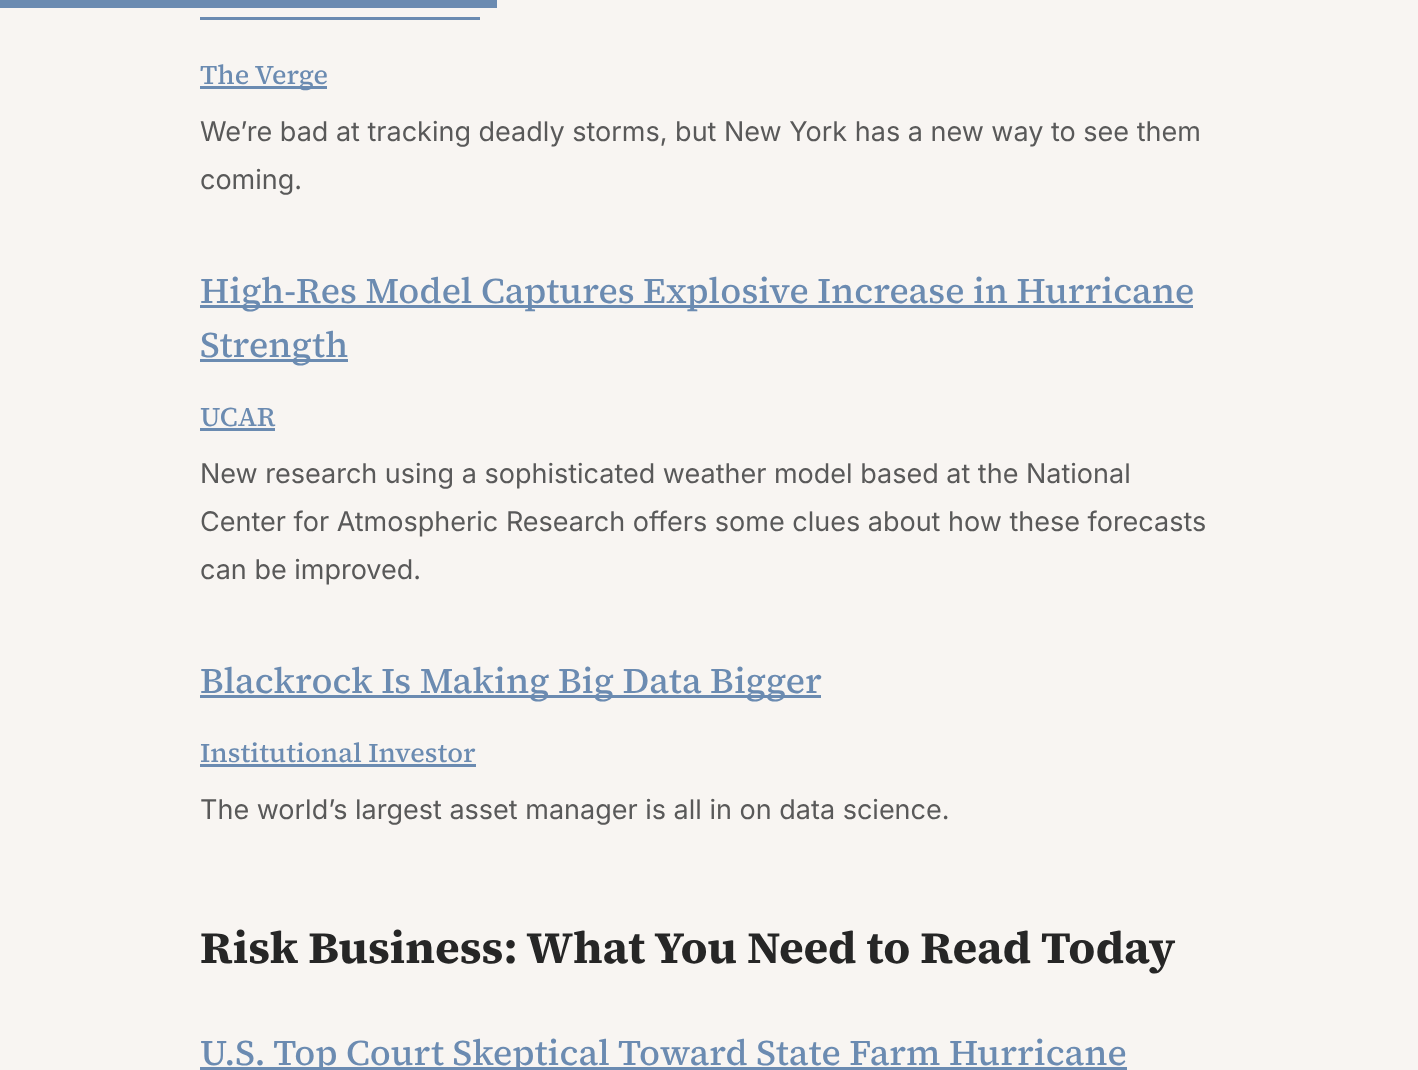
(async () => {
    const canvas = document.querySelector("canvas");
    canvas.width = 1418;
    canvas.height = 1070;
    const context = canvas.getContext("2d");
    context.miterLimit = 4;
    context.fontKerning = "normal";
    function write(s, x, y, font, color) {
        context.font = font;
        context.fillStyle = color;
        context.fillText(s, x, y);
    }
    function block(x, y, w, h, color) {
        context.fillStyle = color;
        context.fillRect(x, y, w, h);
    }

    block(0, 0, 1418, 1070, "rgb(248, 245, 242)");
    block(0, 0, 497, 8, "rgb(107, 139, 177)");
    block(200, 17, 280, 3, "rgb(107, 139, 177)");
    block(200, 86, 127, 3, "rgb(107, 139, 177)");
    write("The Verge", 200, 84, "500 27px 'Source Serif 4'", "rgb(107, 139, 177)");
    write("We’re bad at tracking deadly storms, but New York has a new way to see them", 200, 141, "27px Inter", "rgb(89, 89, 89)");
    write("coming.", 200, 189, "27px Inter", "rgb(89, 89, 89)");
    block(200, 305, 993, 3, "rgb(107, 139, 177)");
    write("High-Res Model Captures Explosive Increase in Hurricane", 200, 303, "500 36px 'Source Serif 4'", "rgb(107, 139, 177)");
    block(200, 359, 148, 3, "rgb(107, 139, 177)");
    write("Strength", 200, 357, "500 36px 'Source Serif 4'", "rgb(107, 139, 177)");
    write("UCAR", 200, 426, "500 27px 'Source Serif 4'", "rgb(107, 139, 177)");
    block(200, 428, 75, 3, "rgb(107, 139, 177)");
    write("New research using a sophisticated weather model based at the National", 200, 483, "27px Inter", "rgb(89, 89, 89)");
    write("Center for Atmospheric Research offers some clues about how these forecasts", 200, 531, "27px Inter", "rgb(89, 89, 89)");
    write("can be improved.", 200, 579, "27px Inter", "rgb(89, 89, 89)");
    block(200, 695, 621, 3, "rgb(107, 139, 177)");
    write("Blackrock Is Making Big Data Bigger", 200, 693, "500 36px 'Source Serif 4'", "rgb(107, 139, 177)");
    write("Institutional Investor", 200, 762, "500 27px 'Source Serif 4'", "rgb(107, 139, 177)");
    block(200, 764, 276, 3, "rgb(107, 139, 177)");
    write("The world’s largest asset manager is all in on data science.", 200, 819, "27px Inter", "rgb(89, 89, 89)");
    write("Risk Business: What You Need to Read Today", 200, 963, "bold 45px 'Source Serif 4'", "rgb(38, 38, 38)");
    block(200, 1067, 927, 3, "rgb(107, 139, 177)");
    write("U.S. Top Court Skeptical Toward State Farm Hurricane", 200, 1065, "500 36px 'Source Serif 4'", "rgb(107, 139, 177)");
})();
